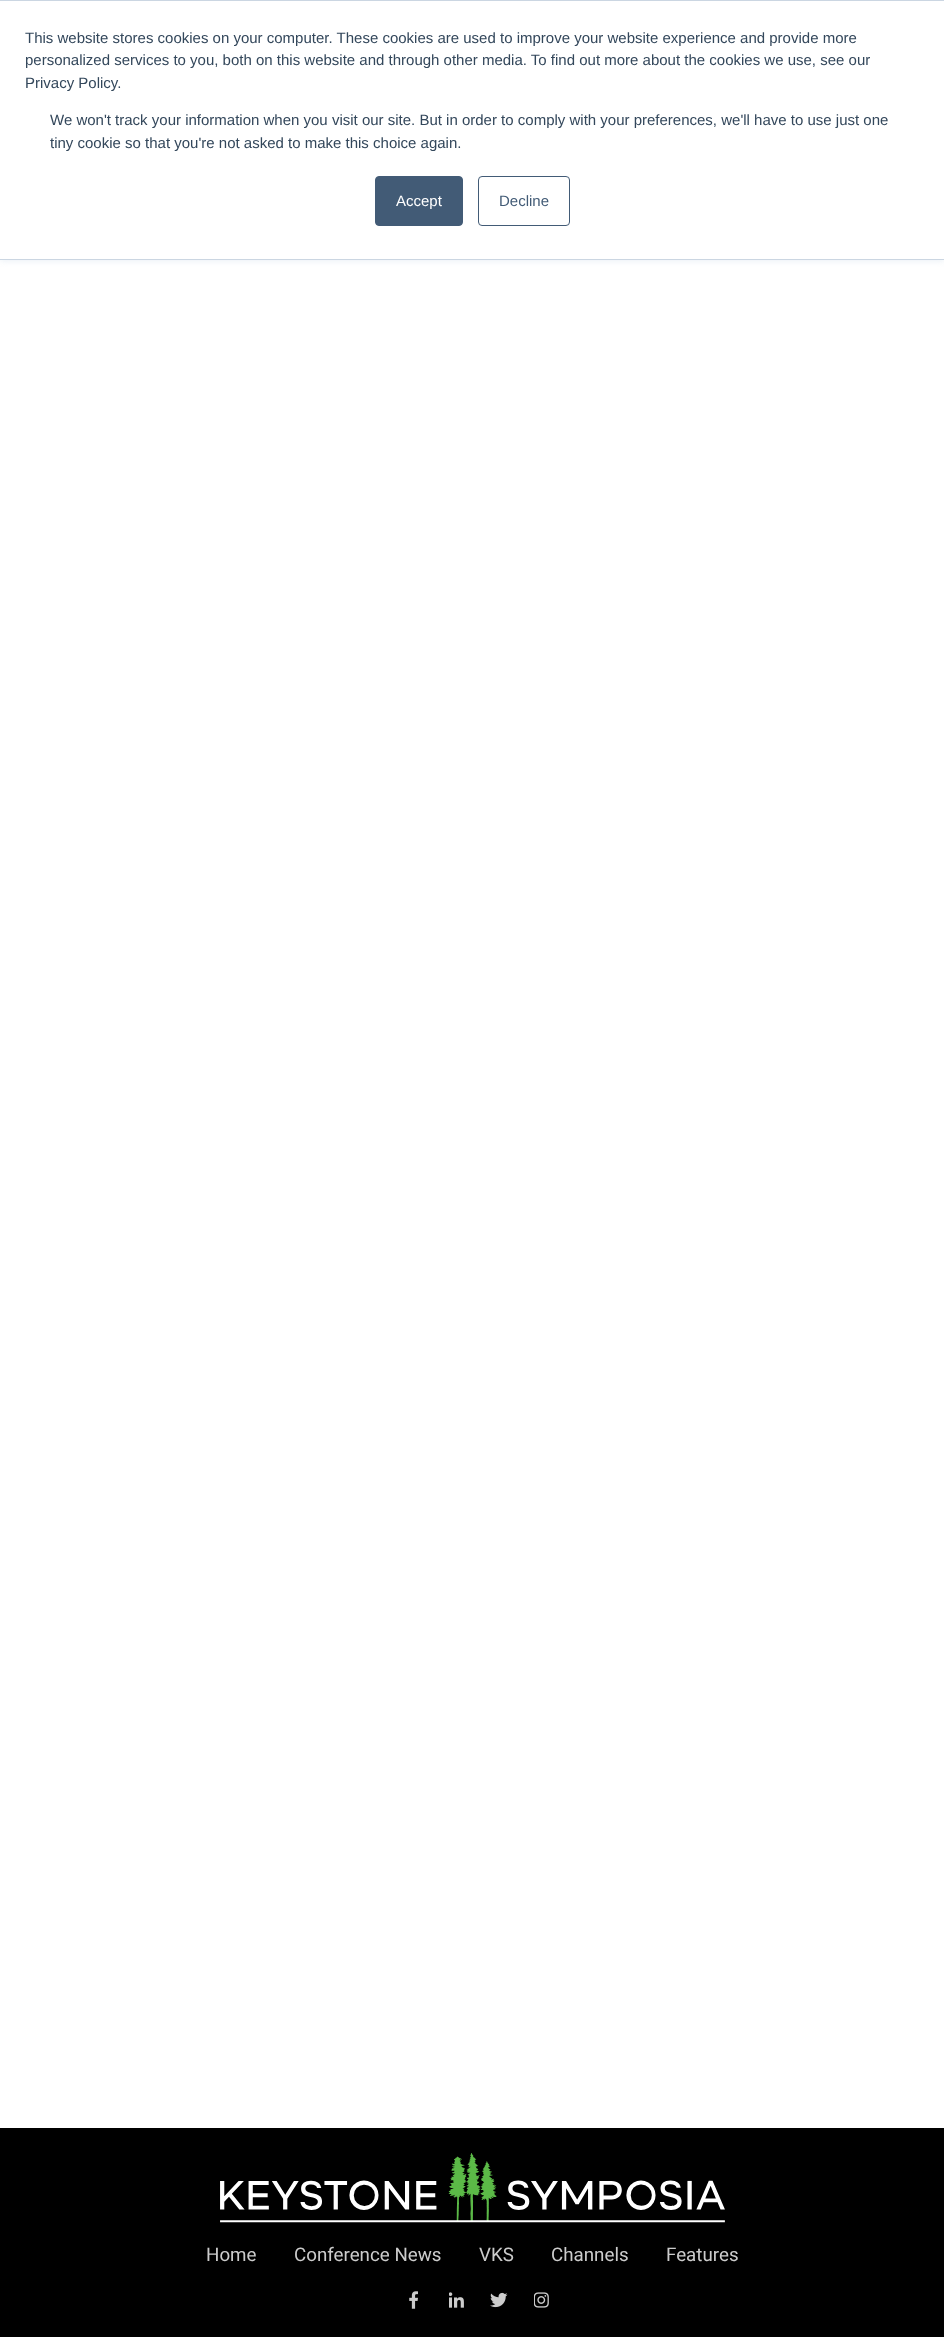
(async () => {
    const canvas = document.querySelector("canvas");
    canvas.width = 944;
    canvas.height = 2337;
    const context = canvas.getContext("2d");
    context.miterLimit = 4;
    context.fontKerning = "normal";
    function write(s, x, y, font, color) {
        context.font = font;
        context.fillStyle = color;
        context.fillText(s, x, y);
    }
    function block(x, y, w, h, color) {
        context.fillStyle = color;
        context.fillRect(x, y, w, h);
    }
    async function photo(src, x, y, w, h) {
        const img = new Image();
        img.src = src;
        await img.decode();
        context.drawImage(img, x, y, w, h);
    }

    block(0, 0, 944, 2337, "rgb(255, 255, 255)");
    context.fillStyle = "rgb(234, 240, 246)";
    context.filter = "blur(3px)";
    context.beginPath();
    context.rect(0, 1, 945, 260);
    context.fill();
    context.filter = "none";
    block(0, 1, 944, 258, "rgb(255, 255, 255)");
    block(0, 0, 944, 1, "rgb(203, 214, 226)");
    block(0, 259, 944, 1, "rgb(203, 214, 226)");
    write("This website stores cookies on your computer. These cookies are used to improve your website experience and provide more", 25, 43, "15px Liberation Sans", "rgb(51, 71, 91)");
    write("personalized services to you, both on this website and through other media. To find out more about the cookies we use, see our", 25, 65, "15px Liberation Sans", "rgb(51, 71, 91)");
    write("Privacy Policy.", 25, 88, "15px Liberation Sans", "rgb(51, 71, 91)");
    write("We won't track your information when you visit our site. But in order to comply with your preferences, we'll have to use just one", 50, 125, "15px Liberation Sans", "rgb(51, 71, 91)");
    write("tiny cookie so that you're not asked to make this choice again.", 50, 148, "15px Liberation Sans", "rgb(51, 71, 91)");
    context.fillStyle = "rgb(66, 91, 118)";
    context.beginPath();
    context.roundRect(375.5, 176.5, 87, 49, 3.5);
    context.fill();
    context.strokeStyle = "rgb(66, 91, 118)";
    context.stroke();
    write("Accept", 396, 206, "15px Liberation Sans", "rgb(255, 255, 255)");
    context.beginPath();
    context.roundRect(478.5, 176.5, 91, 49, 3.5);
    context.stroke();
    write("Decline", 499, 206, "15px Liberation Sans", "rgb(66, 91, 118)");
    block(0, 2128, 944, 209, "rgb(0, 0, 0)");
    await photo("media/1.png", 220, 2153, 505, 70);
    write("Home", 206, 2261, "18.75px Roboto", "rgb(204, 204, 204)");
    write("Conference News", 294, 2261, "18.75px Roboto", "rgb(204, 204, 204)");
    write("VKS", 479, 2261, "18.75px Roboto", "rgb(204, 204, 204)");
    write("Channels", 551, 2261, "18.75px Roboto", "rgb(204, 204, 204)");
    write("Features", 666, 2261, "18.75px Roboto", "rgb(204, 204, 204)");
    await photo("media/2.png", 409, 2291, 9, 18);
    await photo("media/3.png", 449, 2292, 15, 16);
    await photo("media/4.png", 490, 2292, 18, 16);
    await photo("media/5.png", 534, 2292, 15, 16);
})();
